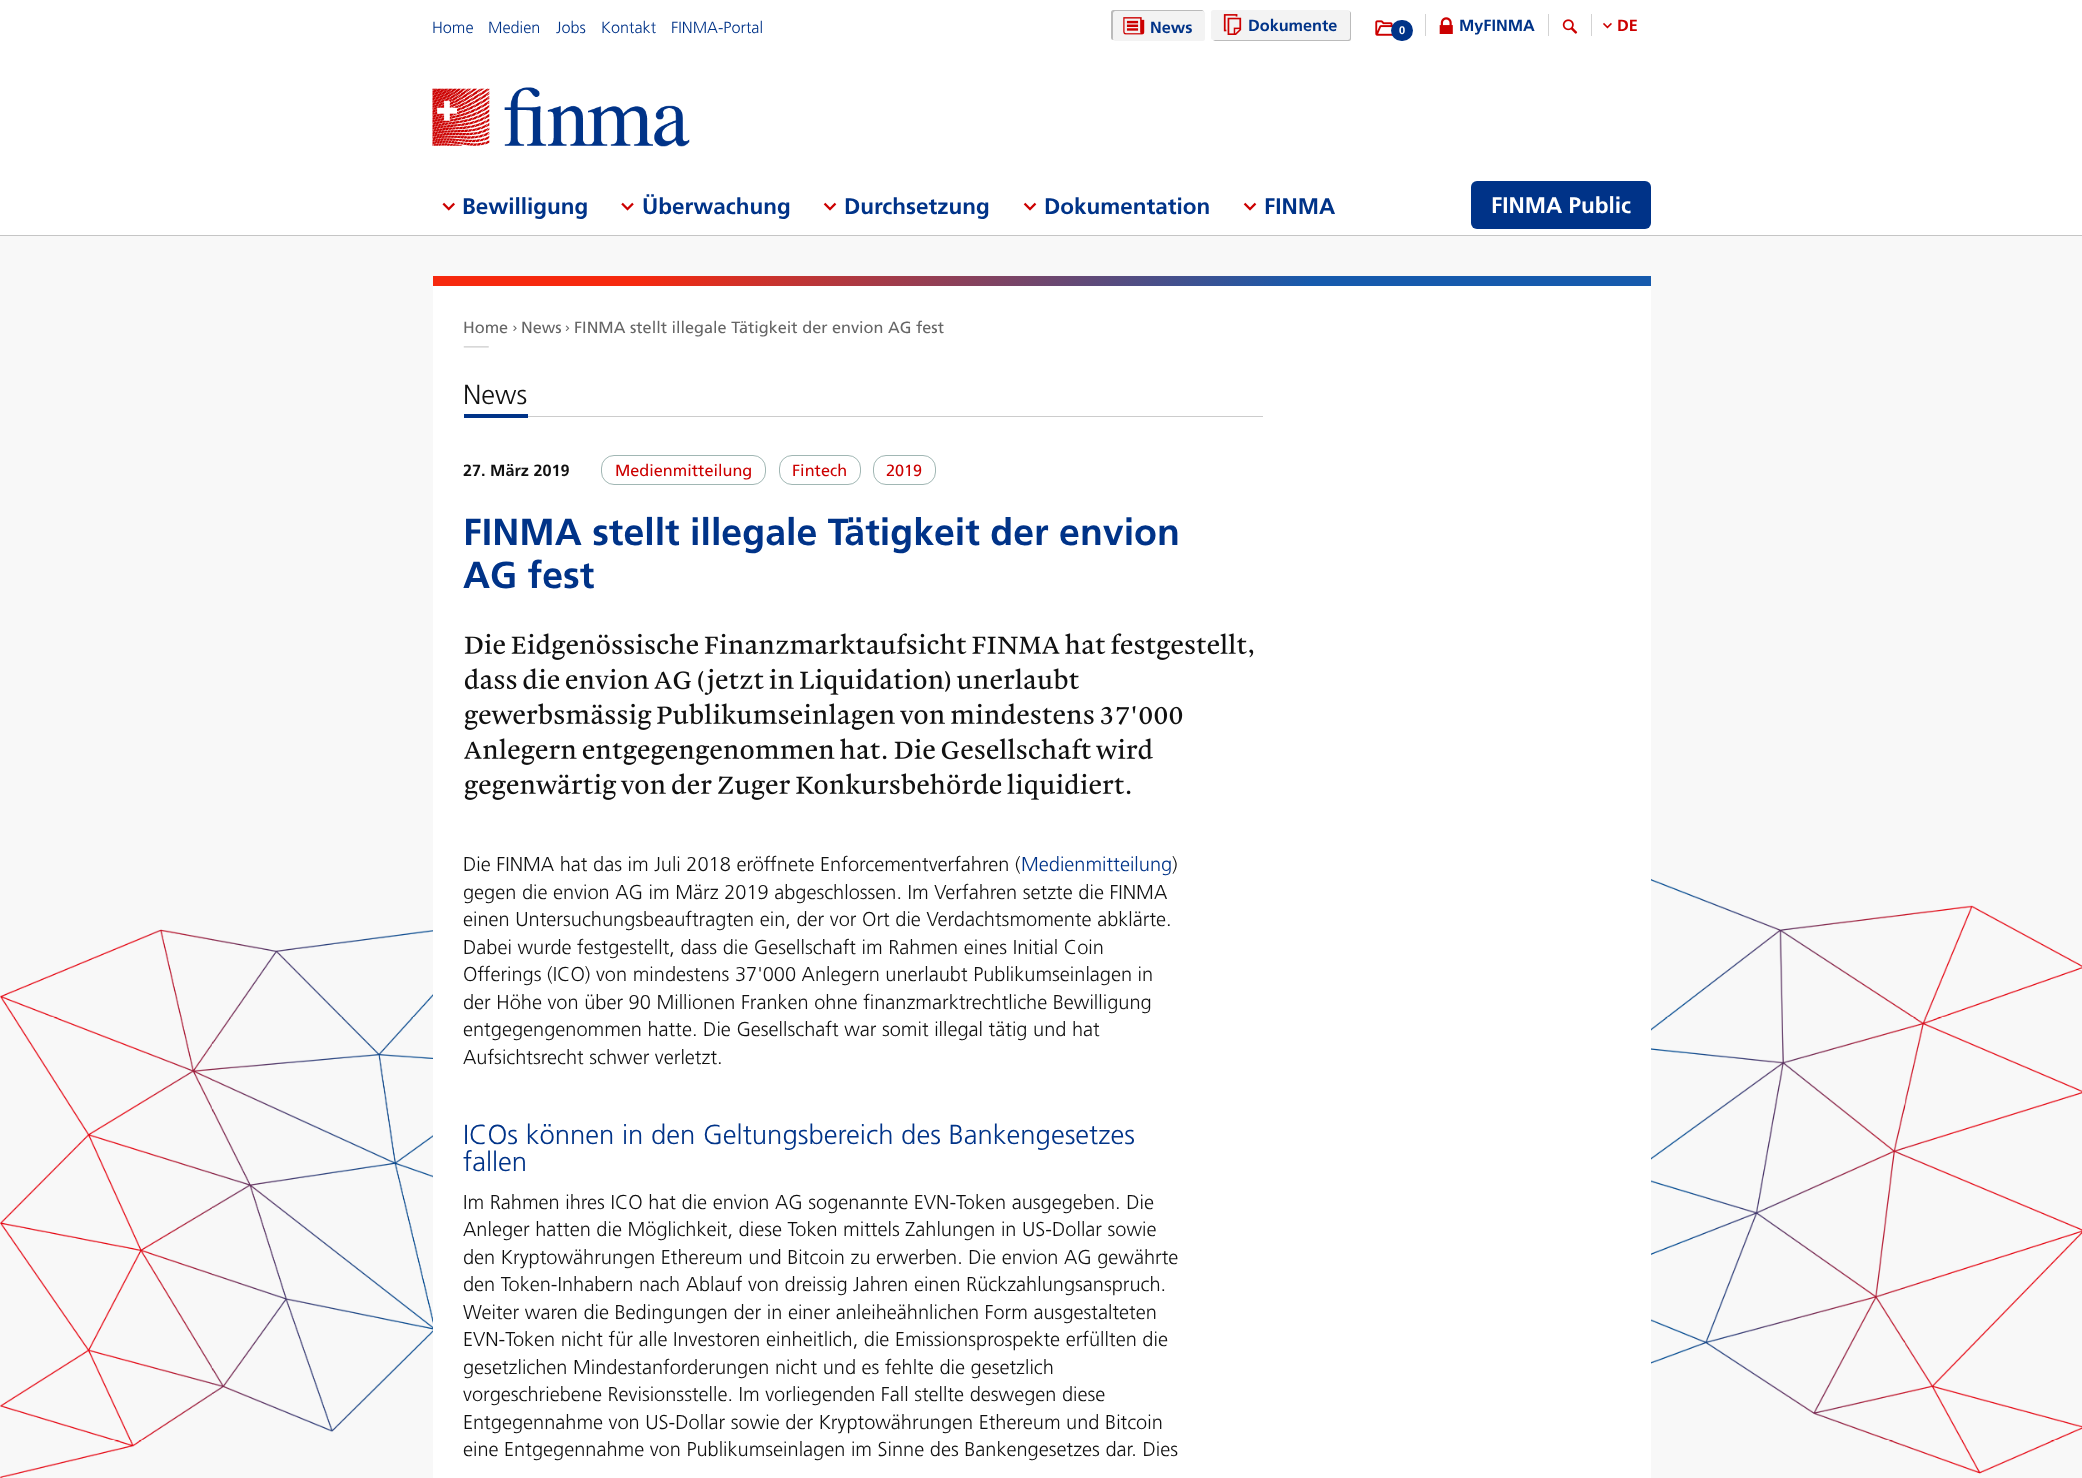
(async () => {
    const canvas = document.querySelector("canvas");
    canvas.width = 2082;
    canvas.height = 1478;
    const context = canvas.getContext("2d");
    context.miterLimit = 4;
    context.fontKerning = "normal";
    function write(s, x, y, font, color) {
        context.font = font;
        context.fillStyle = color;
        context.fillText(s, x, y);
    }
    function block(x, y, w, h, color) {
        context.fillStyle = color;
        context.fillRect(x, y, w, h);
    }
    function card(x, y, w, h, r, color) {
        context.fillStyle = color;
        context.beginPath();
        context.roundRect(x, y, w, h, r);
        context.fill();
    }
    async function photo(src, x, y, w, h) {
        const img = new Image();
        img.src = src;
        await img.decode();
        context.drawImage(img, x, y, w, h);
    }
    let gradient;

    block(0, 0, 2082, 1478, "rgb(248, 248, 248)");
    block(0, 0, 2082, 235, "rgb(255, 255, 255)");
    write("Home", 432, 33, "300 16.25px 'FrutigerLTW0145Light'", "rgb(0, 51, 136)");
    write("Medien", 488, 33, "300 16.25px 'FrutigerLTW0145Light'", "rgb(0, 51, 136)");
    write("Jobs", 556, 33, "300 16.25px 'FrutigerLTW0145Light'", "rgb(0, 51, 136)");
    write("Kontakt", 601, 33, "300 16.25px 'FrutigerLTW0145Light'", "rgb(0, 51, 136)");
    write("FINMA-Portal", 671, 33, "300 16.25px 'FrutigerLTW0145Light'", "rgb(0, 51, 136)");
    context.fillStyle = "rgb(187, 187, 187)";
    context.filter = "blur(0.5px)";
    context.beginPath();
    context.roundRect(1111, 10, 93, 30, 2.5);
    context.fill();
    context.filter = "none";
    card(1113, 11, 92, 30, 2.5, "rgb(243, 243, 243)");
    await photo("media/1.png", 1123, 17, 22, 18);
    write("News", 1150, 33, "bold 16.25px 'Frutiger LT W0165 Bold'", "rgb(0, 51, 136)");
    context.fillStyle = "rgb(187, 187, 187)";
    context.filter = "blur(0.5px)";
    context.beginPath();
    context.roundRect(1213, 11, 138, 30, 2.5);
    context.fill();
    context.filter = "none";
    card(1211, 10, 139, 30, 2.5, "rgb(243, 243, 243)");
    await photo("media/2.png", 1223, 14, 19, 21);
    write("Dokumente", 1248, 31, "bold 16.25px 'Frutiger LT W0165 Bold'", "rgb(0, 51, 136)");
    await photo("media/3.png", 1375, 20, 18, 16);
    card(1391, 20, 22, 21, 10.5, "rgb(0, 51, 136)");
    write("0", 1399, 34, "bold 11px 'Frutiger LT W0165 Bold'", "rgb(255, 255, 255)");
    block(1548, 14, 1, 22, "rgb(211, 211, 211)");
    block(1425, 14, 1, 22, "rgb(211, 211, 211)");
    await photo("media/4.png", 1439, 17, 14, 17);
    write("MyFINMA", 1459, 31, "bold 16.25px 'Frutiger LT W0165 Bold'", "rgb(0, 51, 136)");
    await photo("media/5.png", 1562, 19, 16, 15);
    block(1591, 14, 1, 22, "rgb(211, 211, 211)");
    await photo("media/6.png", 1603, 22, 9, 7);
    write("DE", 1617, 31, "bold 16.25px 'Frutiger LT W0165 Bold'", "rgb(204, 0, 0)");
    await photo("media/7.png", 432, 87, 258, 60);
    await photo("media/8.png", 442, 202, 13, 9);
    write("Bewilligung", 462, 214, "bold 22.5px 'Frutiger LT W0165 Bold'", "rgb(0, 51, 136)");
    await photo("media/9.png", 621, 202, 13, 9);
    write("Überwachung", 642, 214, "bold 22.5px 'Frutiger LT W0165 Bold'", "rgb(0, 51, 136)");
    await photo("media/10.png", 823, 202, 14, 9);
    write("Durchsetzung", 844, 214, "bold 22.5px 'Frutiger LT W0165 Bold'", "rgb(0, 51, 136)");
    await photo("media/10.png", 1023, 202, 14, 9);
    write("Dokumentation", 1044, 214, "bold 22.5px 'Frutiger LT W0165 Bold'", "rgb(0, 51, 136)");
    await photo("media/10.png", 1243, 202, 14, 9);
    write("FINMA", 1264, 214, "bold 22.5px 'Frutiger LT W0165 Bold'", "rgb(0, 51, 136)");
    card(1471, 181, 180, 48, 6, "rgb(0, 51, 136)");
    write("FINMA Public", 1491, 213, "bold 22.5px 'Frutiger LT W0165 Bold'", "rgb(255, 255, 255)");
    block(0, 235, 2082, 1, "rgb(197, 197, 197)");
    await photo("media/19.png", 0, 808, 2082, 670);
    block(433, 286, 1218, 1192, "rgb(255, 255, 255)");
    gradient = context.createLinearGradient(735, -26, 1349, 588);
    gradient.addColorStop(0, "rgb(246, 41, 14)");
    gradient.addColorStop(0.17, "rgb(246, 41, 14)");
    gradient.addColorStop(0.72, "rgb(22, 90, 173)");
    gradient.addColorStop(1, "rgb(22, 90, 173)");
    context.fillStyle = gradient;
    context.fillRect(433, 276, 1218, 10);
    write("Home", 463, 333, "16.25px 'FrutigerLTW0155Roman'", "rgb(102, 102, 102)");
    await photo("media/11.png", 513, 325, 4, 6);
    write("News", 521, 333, "16.25px 'FrutigerLTW0155Roman'", "rgb(102, 102, 102)");
    await photo("media/12.png", 565, 325, 5, 6);
    write("FINMA stellt illegale Tätigkeit der envion AG fest", 574, 333, "16.25px 'FrutigerLTW0155Roman'", "rgb(102, 102, 102)");
    await photo("media/13.png", 463, 346, 26, 2);
    block(528, 416, 735, 1, "rgb(204, 204, 204)");
    block(464, 414, 64, 4, "rgb(0, 51, 136)");
    write("News", 463, 404, "300 27.5px 'FrutigerLTW0145Light'", "rgb(17, 17, 17)");
    write("27. März 2019", 463, 476, "bold 16.25px 'Frutiger LT W0165 Bold'", "rgb(17, 17, 17)");
    context.beginPath();
    context.roundRect(601.5, 455.5, 164, 29, 12.5);
    context.strokeStyle = "rgb(161, 183, 180)";
    context.stroke();
    write("Medienmitteilung", 615, 476, "16.25px 'FrutigerLTW0155Roman'", "rgb(204, 0, 0)");
    context.beginPath();
    context.roundRect(779.5, 455.5, 81, 29, 12.5);
    context.stroke();
    write("Fintech", 792, 476, "16.25px 'FrutigerLTW0155Roman'", "rgb(204, 0, 0)");
    context.beginPath();
    context.roundRect(873.5, 455.5, 62, 29, 12.5);
    context.stroke();
    write("2019", 886, 476, "16.25px 'FrutigerLTW0155Roman'", "rgb(204, 0, 0)");
    write("FINMA stellt illegale Tätigkeit der envion", 463, 545, "bold 37.5px 'Frutiger LT W0165 Bold'", "rgb(0, 51, 136)");
    write("AG fest", 463, 588, "bold 37.5px 'Frutiger LT W0165 Bold'", "rgb(0, 51, 136)");
    await photo("media/14.png", 464, 633, 790, 27);
    await photo("media/15.png", 464, 668, 615, 27);
    await photo("media/16.png", 464, 703, 719, 27);
    await photo("media/17.png", 464, 738, 689, 27);
    await photo("media/18.png", 464, 773, 667, 27);
    write("Die FINMA hat das im Juli 2018 eröffnete Enforcementverfahren (", 463, 871, "300 20px 'FrutigerLTW0145Light'", "rgb(17, 17, 17)");
    write("Medienmitteilung", 1021, 871, "300 20px 'FrutigerLTW0145Light'", "rgb(0, 51, 136)");
    write(")", 1172, 871, "300 20px 'FrutigerLTW0145Light'", "rgb(17, 17, 17)");
    write("gegen die envion AG im März 2019 abgeschlossen. Im Verfahren setzte die FINMA", 463, 899, "300 20px 'FrutigerLTW0145Light'", "rgb(17, 17, 17)");
    write("einen Untersuchungsbeauftragten ein, der vor Ort die Verdachtsmomente abklärte.", 463, 926, "300 20px 'FrutigerLTW0145Light'", "rgb(17, 17, 17)");
    write("Dabei wurde festgestellt, dass die Gesellschaft im Rahmen eines Initial Coin", 463, 954, "300 20px 'FrutigerLTW0145Light'", "rgb(17, 17, 17)");
    write("Offerings (ICO) von mindestens 37'000 Anlegern unerlaubt Publikumseinlagen in", 463, 981, "300 20px 'FrutigerLTW0145Light'", "rgb(17, 17, 17)");
    write("der Höhe von über 90 Millionen Franken ohne finanzmarktrechtliche Bewilligung", 463, 1009, "300 20px 'FrutigerLTW0145Light'", "rgb(17, 17, 17)");
    write("entgegengenommen hatte. Die Gesellschaft war somit illegal tätig und hat", 463, 1036, "300 20px 'FrutigerLTW0145Light'", "rgb(17, 17, 17)");
    write("Aufsichtsrecht schwer verletzt.", 463, 1064, "300 20px 'FrutigerLTW0145Light'", "rgb(17, 17, 17)");
    write("ICOs können in den Geltungsbereich des Bankengesetzes", 463, 1144, "300 27.5px 'FrutigerLTW0145Light'", "rgb(0, 51, 136)");
    write("fallen", 463, 1171, "300 27.5px 'FrutigerLTW0145Light'", "rgb(0, 51, 136)");
    write("Im Rahmen ihres ICO hat die envion AG sogenannte EVN-Token ausgegeben. Die", 463, 1209, "300 20px 'FrutigerLTW0145Light'", "rgb(17, 17, 17)");
    write("Anleger hatten die Möglichkeit, diese Token mittels Zahlungen in US-Dollar sowie", 463, 1236, "300 20px 'FrutigerLTW0145Light'", "rgb(17, 17, 17)");
    write("den Kryptowährungen Ethereum und Bitcoin zu erwerben. Die envion AG gewährte", 463, 1264, "300 20px 'FrutigerLTW0145Light'", "rgb(17, 17, 17)");
    write("den Token-Inhabern nach Ablauf von dreissig Jahren einen Rückzahlungsanspruch.", 463, 1291, "300 20px 'FrutigerLTW0145Light'", "rgb(17, 17, 17)");
    write("Weiter waren die Bedingungen der in einer anleiheähnlichen Form ausgestalteten", 463, 1319, "300 20px 'FrutigerLTW0145Light'", "rgb(17, 17, 17)");
    write("EVN-Token nicht für alle Investoren einheitlich, die Emissionsprospekte erfüllten die", 463, 1346, "300 20px 'FrutigerLTW0145Light'", "rgb(17, 17, 17)");
    write("gesetzlichen Mindestanforderungen nicht und es fehlte die gesetzlich", 463, 1374, "300 20px 'FrutigerLTW0145Light'", "rgb(17, 17, 17)");
    write("vorgeschriebene Revisionsstelle. Im vorliegenden Fall stellte deswegen diese", 463, 1401, "300 20px 'FrutigerLTW0145Light'", "rgb(17, 17, 17)");
    write("Entgegennahme von US-Dollar sowie der Kryptowährungen Ethereum und Bitcoin", 463, 1429, "300 20px 'FrutigerLTW0145Light'", "rgb(17, 17, 17)");
    write("eine Entgegennahme von Publikumseinlagen im Sinne des Bankengesetzes dar. Dies", 463, 1456, "300 20px 'FrutigerLTW0145Light'", "rgb(17, 17, 17)");
})();
